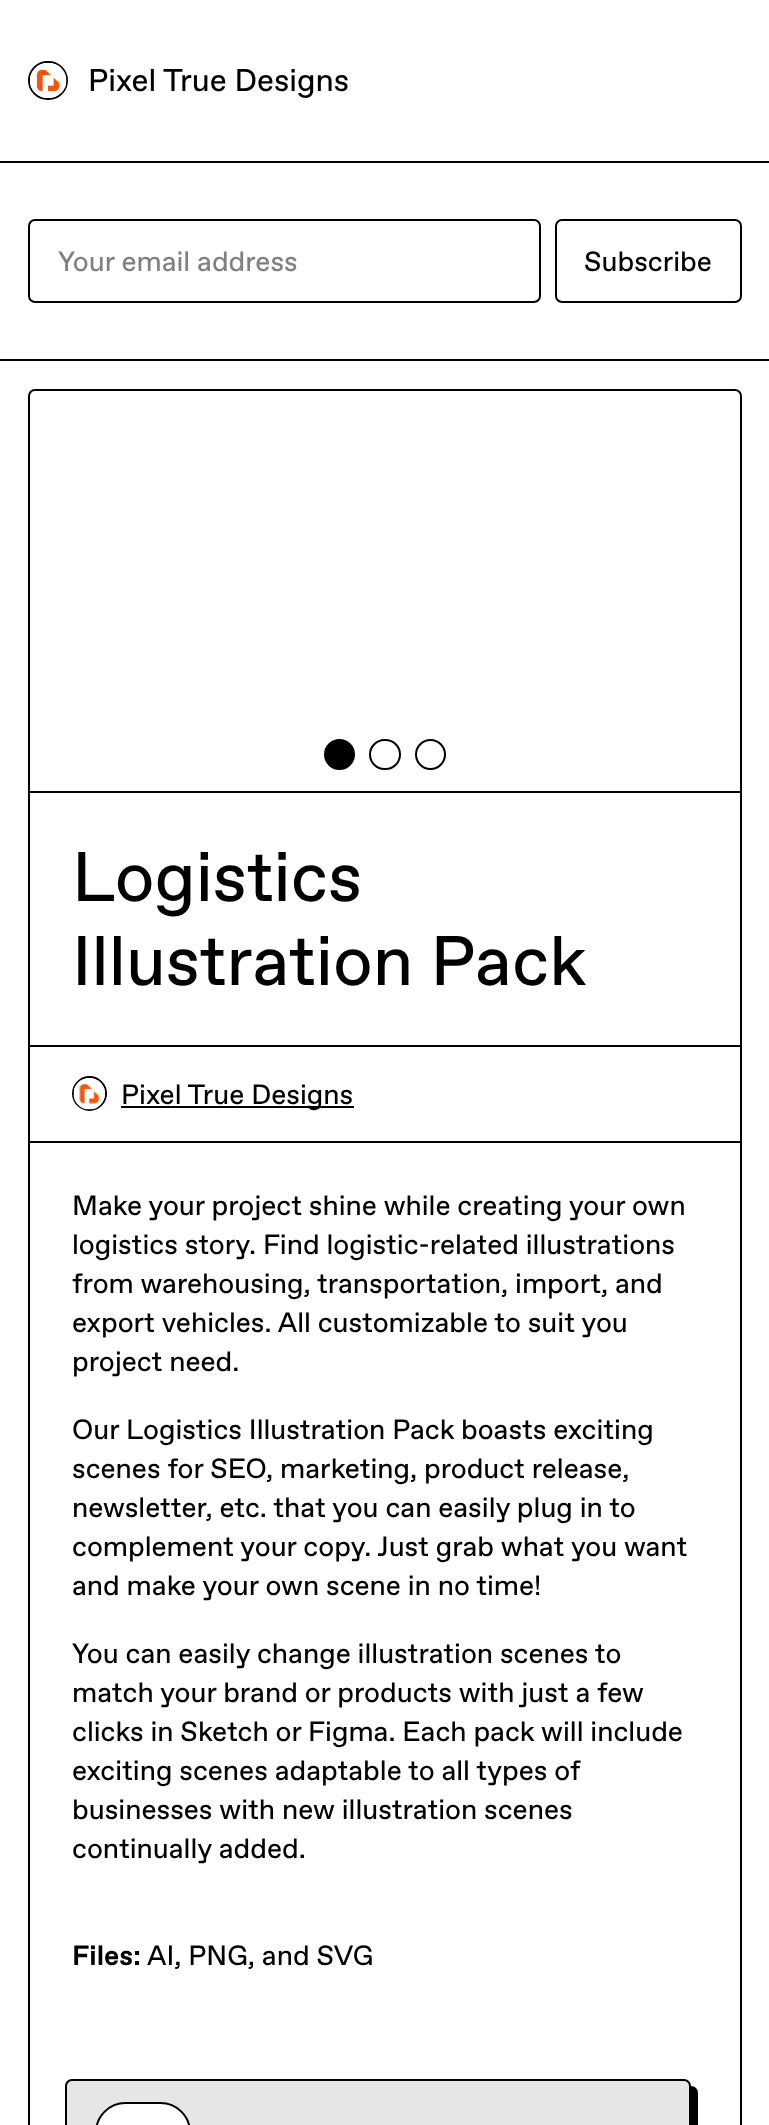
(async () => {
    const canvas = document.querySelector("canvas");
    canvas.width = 769;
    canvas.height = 2125;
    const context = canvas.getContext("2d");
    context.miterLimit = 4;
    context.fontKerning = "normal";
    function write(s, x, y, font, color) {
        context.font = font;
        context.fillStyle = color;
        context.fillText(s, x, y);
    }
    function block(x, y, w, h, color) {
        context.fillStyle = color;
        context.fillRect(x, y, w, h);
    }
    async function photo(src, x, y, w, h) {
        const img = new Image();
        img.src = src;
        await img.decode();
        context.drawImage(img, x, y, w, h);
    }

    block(0, 0, 769, 2125, "rgb(255, 255, 255)");
    block(0, 161, 769, 2, "rgb(0, 0, 0)");
    context.beginPath();
    context.roundRect(29, 62, 38, 37, 18.5);
    context.strokeStyle = "rgb(0, 0, 0)";
    context.lineWidth = 2;
    context.stroke();
    await photo("media/1.png", 29, 63, 38, 35);
    write("Pixel True Designs", 88, 91, "31.5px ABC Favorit", "rgb(0, 0, 0)");
    block(0, 359, 769, 2, "rgb(0, 0, 0)");
    context.beginPath();
    context.roundRect(29, 220, 511, 82, 6);
    context.stroke();
    write("Your email address", 58, 271, "28px ABC Favorit", "rgb(128, 128, 128)");
    context.beginPath();
    context.roundRect(556, 220, 185, 82, 6);
    context.stroke();
    write("Subscribe", 584, 271, "28px ABC Favorit", "rgb(0, 0, 0)");
    context.beginPath();
    context.roundRect(29, 390, 712, 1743, 6);
    context.stroke();
    block(30, 791, 710, 2, "rgb(0, 0, 0)");
    context.beginPath();
    context.arc(339.5, 754.5, 14.5, 0, Math.PI * 2);
    context.fill();
    context.stroke();
    context.beginPath();
    context.roundRect(370, 740, 30, 29, 14.5);
    context.stroke();
    context.beginPath();
    context.arc(430.5, 754.5, 14.5, 0, Math.PI * 2);
    context.stroke();
    write("Logistics", 72, 901, "70px ABC Favorit", "rgb(0, 0, 0)");
    write("Illustration Pack", 72, 985, "70px ABC Favorit", "rgb(0, 0, 0)");
    block(30, 1045, 710, 2, "rgb(0, 0, 0)");
    context.beginPath();
    context.arc(89.5, 1093.5, 16.5, 0, Math.PI * 2);
    context.stroke();
    await photo("media/2.png", 73, 1078, 32, 32);
    block(121, 1106, 233, 2, "rgb(0, 0, 0)");
    write("Pixel True Designs", 121, 1104, "28px ABC Favorit", "rgb(0, 0, 0)");
    block(30, 1141, 710, 2, "rgb(0, 0, 0)");
    write("Make your project shine while creating your own", 72, 1215, "28px ABC Favorit", "rgb(0, 0, 0)");
    write("logistics story. Find logistic-related illustrations", 72, 1254, "28px ABC Favorit", "rgb(0, 0, 0)");
    write("from warehousing, transportation, import, and", 72, 1293, "28px ABC Favorit", "rgb(0, 0, 0)");
    write("export vehicles. All customizable to suit you", 72, 1332, "28px ABC Favorit", "rgb(0, 0, 0)");
    write("project need.", 72, 1371, "28px ABC Favorit", "rgb(0, 0, 0)");
    write("Our Logistics Illustration Pack boasts exciting", 72, 1439, "28px ABC Favorit", "rgb(0, 0, 0)");
    write("scenes for SEO, marketing, product release,", 72, 1478, "28px ABC Favorit", "rgb(0, 0, 0)");
    write("newsletter, etc. that you can easily plug in to", 72, 1517, "28px ABC Favorit", "rgb(0, 0, 0)");
    write("complement your copy. Just grab what you want", 72, 1556, "28px ABC Favorit", "rgb(0, 0, 0)");
    write("and make your own scene in no time!", 72, 1595, "28px ABC Favorit", "rgb(0, 0, 0)");
    write("You can easily change illustration scenes to", 72, 1663, "28px ABC Favorit", "rgb(0, 0, 0)");
    write("match your brand or products with just a few", 72, 1702, "28px ABC Favorit", "rgb(0, 0, 0)");
    write("clicks in Sketch or Figma. Each pack will include", 72, 1741, "28px ABC Favorit", "rgb(0, 0, 0)");
    write("exciting scenes adaptable to all types of", 72, 1780, "28px ABC Favorit", "rgb(0, 0, 0)");
    write("businesses with new illustration scenes", 72, 1819, "28px ABC Favorit", "rgb(0, 0, 0)");
    write("continually added.", 72, 1858, "28px ABC Favorit", "rgb(0, 0, 0)");
    write("Files:", 72, 1965, "bold 28px ABC Favorit", "rgb(0, 0, 0)");
    write("AI, PNG, and SVG", 147, 1965, "28px ABC Favorit", "rgb(0, 0, 0)");
    context.beginPath();
    context.moveTo(72, 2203);
    context.bezierCurveTo(72, 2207, 75, 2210, 79, 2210);
    context.lineTo(691, 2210);
    context.bezierCurveTo(695, 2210, 698, 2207, 698, 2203);
    context.lineTo(698, 2093);
    context.bezierCurveTo(698, 2089, 695, 2086, 691, 2086);
    context.lineTo(691, 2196);
    context.bezierCurveTo(691, 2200, 688, 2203, 684, 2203);
    context.closePath();
    context.fill();
    context.fillStyle = "rgb(230, 230, 230)";
    context.beginPath();
    context.moveTo(72, 2079);
    context.lineTo(684, 2079);
    context.bezierCurveTo(688, 2079, 691, 2082, 691, 2086);
    context.lineTo(691, 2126);
    context.lineTo(65, 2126);
    context.lineTo(65, 2086);
    context.bezierCurveTo(65, 2082, 68, 2079, 72, 2079);
    context.closePath();
    context.fill();
    context.beginPath();
    context.roundRect(66, 2080, 624, 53, 6);
    context.stroke();
    context.fillStyle = "rgb(255, 255, 255)";
    context.beginPath();
    context.moveTo(131, 2102);
    context.lineTo(155, 2102);
    context.bezierCurveTo(175, 2102, 191, 2118, 191, 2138);
    context.lineTo(191, 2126);
    context.lineTo(95, 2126);
    context.lineTo(95, 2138);
    context.bezierCurveTo(95, 2118, 111, 2102, 131, 2102);
    context.closePath();
    context.fill();
    context.beginPath();
    context.roundRect(96, 2103, 94, 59, 35);
    context.stroke();
})();
